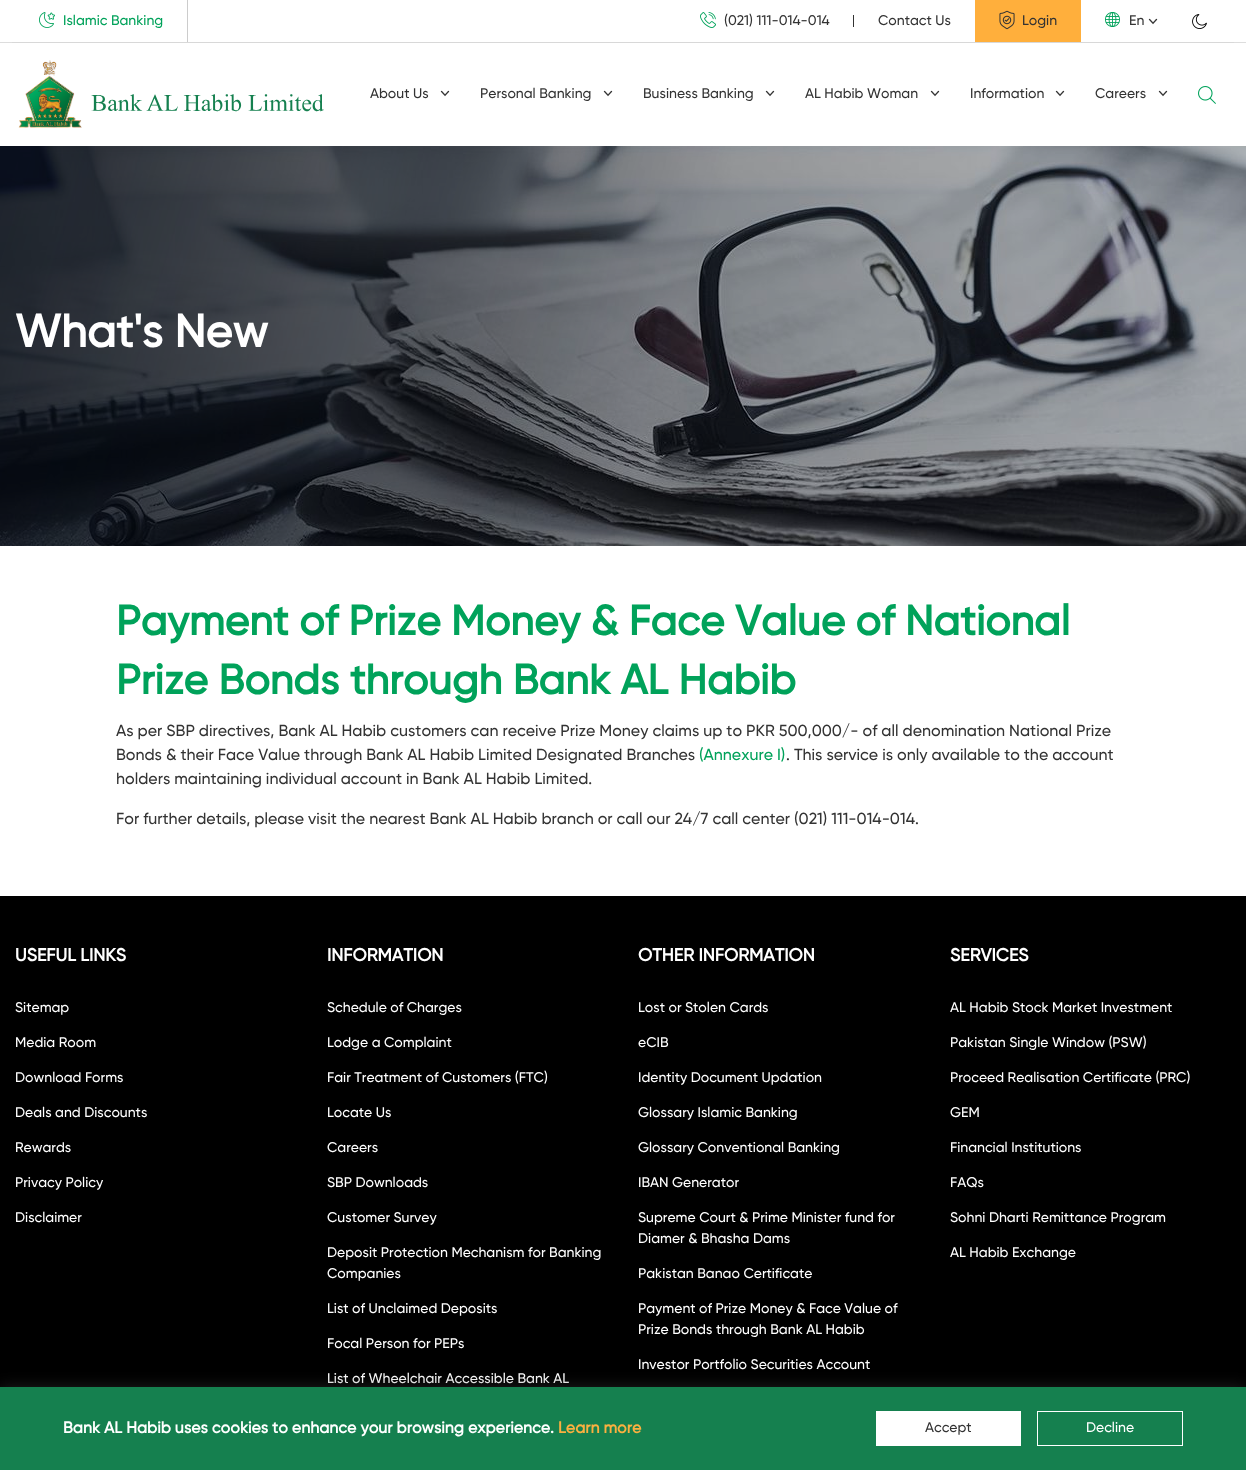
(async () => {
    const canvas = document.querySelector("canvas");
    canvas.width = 1246;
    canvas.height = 1470;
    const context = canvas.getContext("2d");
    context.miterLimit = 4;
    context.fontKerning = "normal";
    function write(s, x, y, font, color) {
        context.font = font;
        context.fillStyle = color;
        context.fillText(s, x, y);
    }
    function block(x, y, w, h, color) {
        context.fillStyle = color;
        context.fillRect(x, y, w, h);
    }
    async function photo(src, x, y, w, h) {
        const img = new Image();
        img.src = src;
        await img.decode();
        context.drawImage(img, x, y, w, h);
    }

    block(0, 0, 1246, 1470, "rgb(255, 255, 255)");
    block(0, 42, 1246, 1, "rgb(221, 221, 221)");
    block(187, 0, 1, 42, "rgb(204, 204, 204)");
    await photo("media/1.png", 39, 12, 16, 16);
    write("Islamic Banking", 63, 25, "14px Gilroy", "rgb(0, 162, 90)");
    await photo("media/2.png", 700, 12, 16, 16);
    write("(021) 111-014-014", 724, 25, "14px Gilroy", "rgb(51, 51, 51)");
    block(853, 15, 1, 12, "rgb(51, 51, 51)");
    write("Contact Us", 878, 25, "14px Gilroy", "rgb(51, 51, 51)");
    block(975, 0, 106, 42, "rgb(255, 175, 60)");
    await photo("media/3.png", 999, 10, 16, 20);
    write("Login", 1022, 25, "14px Gilroy", "rgb(51, 51, 51)");
    await photo("media/4.png", 1105, 12, 15, 15);
    write("En", 1129, 25, "14px Gilroy", "rgb(51, 51, 51)");
    await photo("media/5.png", 1148, 18, 10, 7);
    await photo("media/6.png", 1192, 14, 15, 15);
    context.save();
    context.beginPath();
    context.rect(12, 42, 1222, 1);
    context.clip();
    context.fillStyle = "rgba(0, 0, 0, 0.15)";
    context.filter = "blur(8px)";
    context.beginPath();
    context.rect(0, 51, 1246, 103);
    context.fill();
    context.filter = "none";
    context.restore();
    await photo("media/7.png", 18, 60, 306, 68);
    write("About Us", 370, 98, "14px Gilroy", "rgb(51, 51, 51)");
    await photo("media/5.png", 440, 90, 10, 7);
    write("Personal Banking", 480, 98, "14px Gilroy", "rgb(51, 51, 51)");
    await photo("media/5.png", 603, 90, 10, 7);
    write("Business Banking", 643, 98, "14px Gilroy", "rgb(51, 51, 51)");
    await photo("media/5.png", 765, 90, 10, 7);
    write("AL Habib Woman", 805, 98, "14px Gilroy", "rgb(51, 51, 51)");
    await photo("media/5.png", 930, 90, 10, 7);
    write("Information", 970, 98, "14px Gilroy", "rgb(51, 51, 51)");
    await photo("media/5.png", 1055, 90, 10, 7);
    write("Careers", 1095, 98, "14px Gilroy", "rgb(51, 51, 51)");
    await photo("media/5.png", 1158, 90, 10, 7);
    await photo("media/8.png", 1198, 86, 18, 18);
    await photo("media/9.png", 0, 146, 1246, 400);
    write("What's New", 15, 347, "bold 46px Gilroy", "rgb(255, 255, 255)");
    write("Payment of Prize Money & Face Value of National", 116, 635, "bold 42px Gilroy", "rgb(0, 162, 90)");
    write("Prize Bonds through Bank AL Habib", 116, 694, "bold 42px Gilroy", "rgb(0, 162, 90)");
    write("As per SBP directives, Bank AL Habib customers can receive Prize Money claims up to PKR 500,000/- of all denomination National Prize", 116, 736, "16px Gilroy", "rgb(51, 51, 51)");
    write("Bonds & their Face Value through Bank AL Habib Limited Designated Branches", 116, 760, "16px Gilroy", "rgb(51, 51, 51)");
    write("(Annexure I)", 699, 760, "16px Gilroy", "rgb(0, 162, 90)");
    write(". This service is only available to the account", 786, 760, "16px Gilroy", "rgb(51, 51, 51)");
    write("holders maintaining individual account in Bank AL Habib Limited.", 116, 784, "16px Gilroy", "rgb(51, 51, 51)");
    write("For further details, please visit the nearest Bank AL Habib branch or call our 24/7 call center (021) 111-014-014.", 116, 824, "16px Gilroy", "rgb(51, 51, 51)");
    block(0, 896, 1246, 491, "rgb(0, 0, 0)");
    write("USEFUL LINKS", 15, 961, "bold 17.75px Gilroy", "rgb(255, 255, 255)");
    write("Sitemap", 15, 1012, "14px Gilroy", "rgb(255, 255, 255)");
    write("Media Room", 15, 1047, "14px Gilroy", "rgb(255, 255, 255)");
    write("Download Forms", 15, 1082, "14px Gilroy", "rgb(255, 255, 255)");
    write("Deals and Discounts", 15, 1117, "14px Gilroy", "rgb(255, 255, 255)");
    write("Rewards", 15, 1152, "14px Gilroy", "rgb(255, 255, 255)");
    write("Privacy Policy", 15, 1187, "14px Gilroy", "rgb(255, 255, 255)");
    write("Disclaimer", 15, 1222, "14px Gilroy", "rgb(255, 255, 255)");
    write("INFORMATION", 327, 961, "bold 17.75px Gilroy", "rgb(255, 255, 255)");
    write("Schedule of Charges", 327, 1012, "14px Gilroy", "rgb(255, 255, 255)");
    write("Lodge a Complaint", 327, 1047, "14px Gilroy", "rgb(255, 255, 255)");
    write("Fair Treatment of Customers (FTC)", 327, 1082, "14px Gilroy", "rgb(255, 255, 255)");
    write("Locate Us", 327, 1117, "14px Gilroy", "rgb(255, 255, 255)");
    write("Careers", 327, 1152, "14px Gilroy", "rgb(255, 255, 255)");
    write("SBP Downloads", 327, 1187, "14px Gilroy", "rgb(255, 255, 255)");
    write("Customer Survey", 327, 1222, "14px Gilroy", "rgb(255, 255, 255)");
    write("Deposit Protection Mechanism for Banking", 327, 1257, "14px Gilroy", "rgb(255, 255, 255)");
    write("Companies", 327, 1278, "14px Gilroy", "rgb(255, 255, 255)");
    write("List of Unclaimed Deposits", 327, 1313, "14px Gilroy", "rgb(255, 255, 255)");
    write("Focal Person for PEPs", 327, 1348, "14px Gilroy", "rgb(255, 255, 255)");
    write("List of Wheelchair Accessible Bank AL", 327, 1383, "14px Gilroy", "rgb(255, 255, 255)");
    write("OTHER INFORMATION", 638, 961, "bold 17.75px Gilroy", "rgb(255, 255, 255)");
    write("Lost or Stolen Cards", 638, 1012, "14px Gilroy", "rgb(255, 255, 255)");
    write("eCIB", 638, 1047, "14px Gilroy", "rgb(255, 255, 255)");
    write("Identity Document Updation", 638, 1082, "14px Gilroy", "rgb(255, 255, 255)");
    write("Glossary Islamic Banking", 638, 1117, "14px Gilroy", "rgb(255, 255, 255)");
    write("Glossary Conventional Banking", 638, 1152, "14px Gilroy", "rgb(255, 255, 255)");
    write("IBAN Generator", 638, 1187, "14px Gilroy", "rgb(255, 255, 255)");
    write("Supreme Court & Prime Minister fund for", 638, 1222, "14px Gilroy", "rgb(255, 255, 255)");
    write("Diamer & Bhasha Dams", 638, 1243, "14px Gilroy", "rgb(255, 255, 255)");
    write("Pakistan Banao Certificate", 638, 1278, "14px Gilroy", "rgb(255, 255, 255)");
    write("Payment of Prize Money & Face Value of", 638, 1313, "14px Gilroy", "rgb(255, 255, 255)");
    write("Prize Bonds through Bank AL Habib", 638, 1334, "14px Gilroy", "rgb(255, 255, 255)");
    write("Investor Portfolio Securities Account", 638, 1369, "14px Gilroy", "rgb(255, 255, 255)");
    write("SERVICES", 950, 961, "bold 17.75px Gilroy", "rgb(255, 255, 255)");
    write("AL Habib Stock Market Investment", 950, 1012, "14px Gilroy", "rgb(255, 255, 255)");
    write("Pakistan Single Window (PSW)", 950, 1047, "14px Gilroy", "rgb(255, 255, 255)");
    write("Proceed Realisation Certificate (PRC)", 950, 1082, "14px Gilroy", "rgb(255, 255, 255)");
    write("GEM", 950, 1117, "14px Gilroy", "rgb(255, 255, 255)");
    write("Financial Institutions", 950, 1152, "14px Gilroy", "rgb(255, 255, 255)");
    write("FAQs", 950, 1187, "14px Gilroy", "rgb(255, 255, 255)");
    write("Sohni Dharti Remittance Program", 950, 1222, "14px Gilroy", "rgb(255, 255, 255)");
    write("AL Habib Exchange", 950, 1257, "14px Gilroy", "rgb(255, 255, 255)");
    context.fillStyle = "rgba(56, 56, 56, 0.55)";
    context.filter = "blur(7.5px)";
    context.beginPath();
    context.rect(0, 1387, 1246, 83);
    context.fill();
    context.filter = "none";
    block(0, 1387, 1246, 83, "rgb(21, 128, 79)");
    write("Bank AL Habib uses cookies to enhance your browsing experience.", 63, 1433, "bold 16px Gilroy", "rgb(255, 255, 255)");
    write("Learn more", 558, 1433, "bold 16px Gilroy", "rgb(251, 176, 64)");
    block(876, 1411, 145, 35, "rgb(255, 255, 255)");
    write("Accept", 925, 1432, "14px Gilroy", "rgb(51, 51, 51)");
    context.strokeStyle = "rgb(255, 255, 255)";
    context.strokeRect(1037.5, 1411.5, 145, 34);
    write("Decline", 1086, 1432, "14px Gilroy", "rgb(255, 255, 255)");
})();
